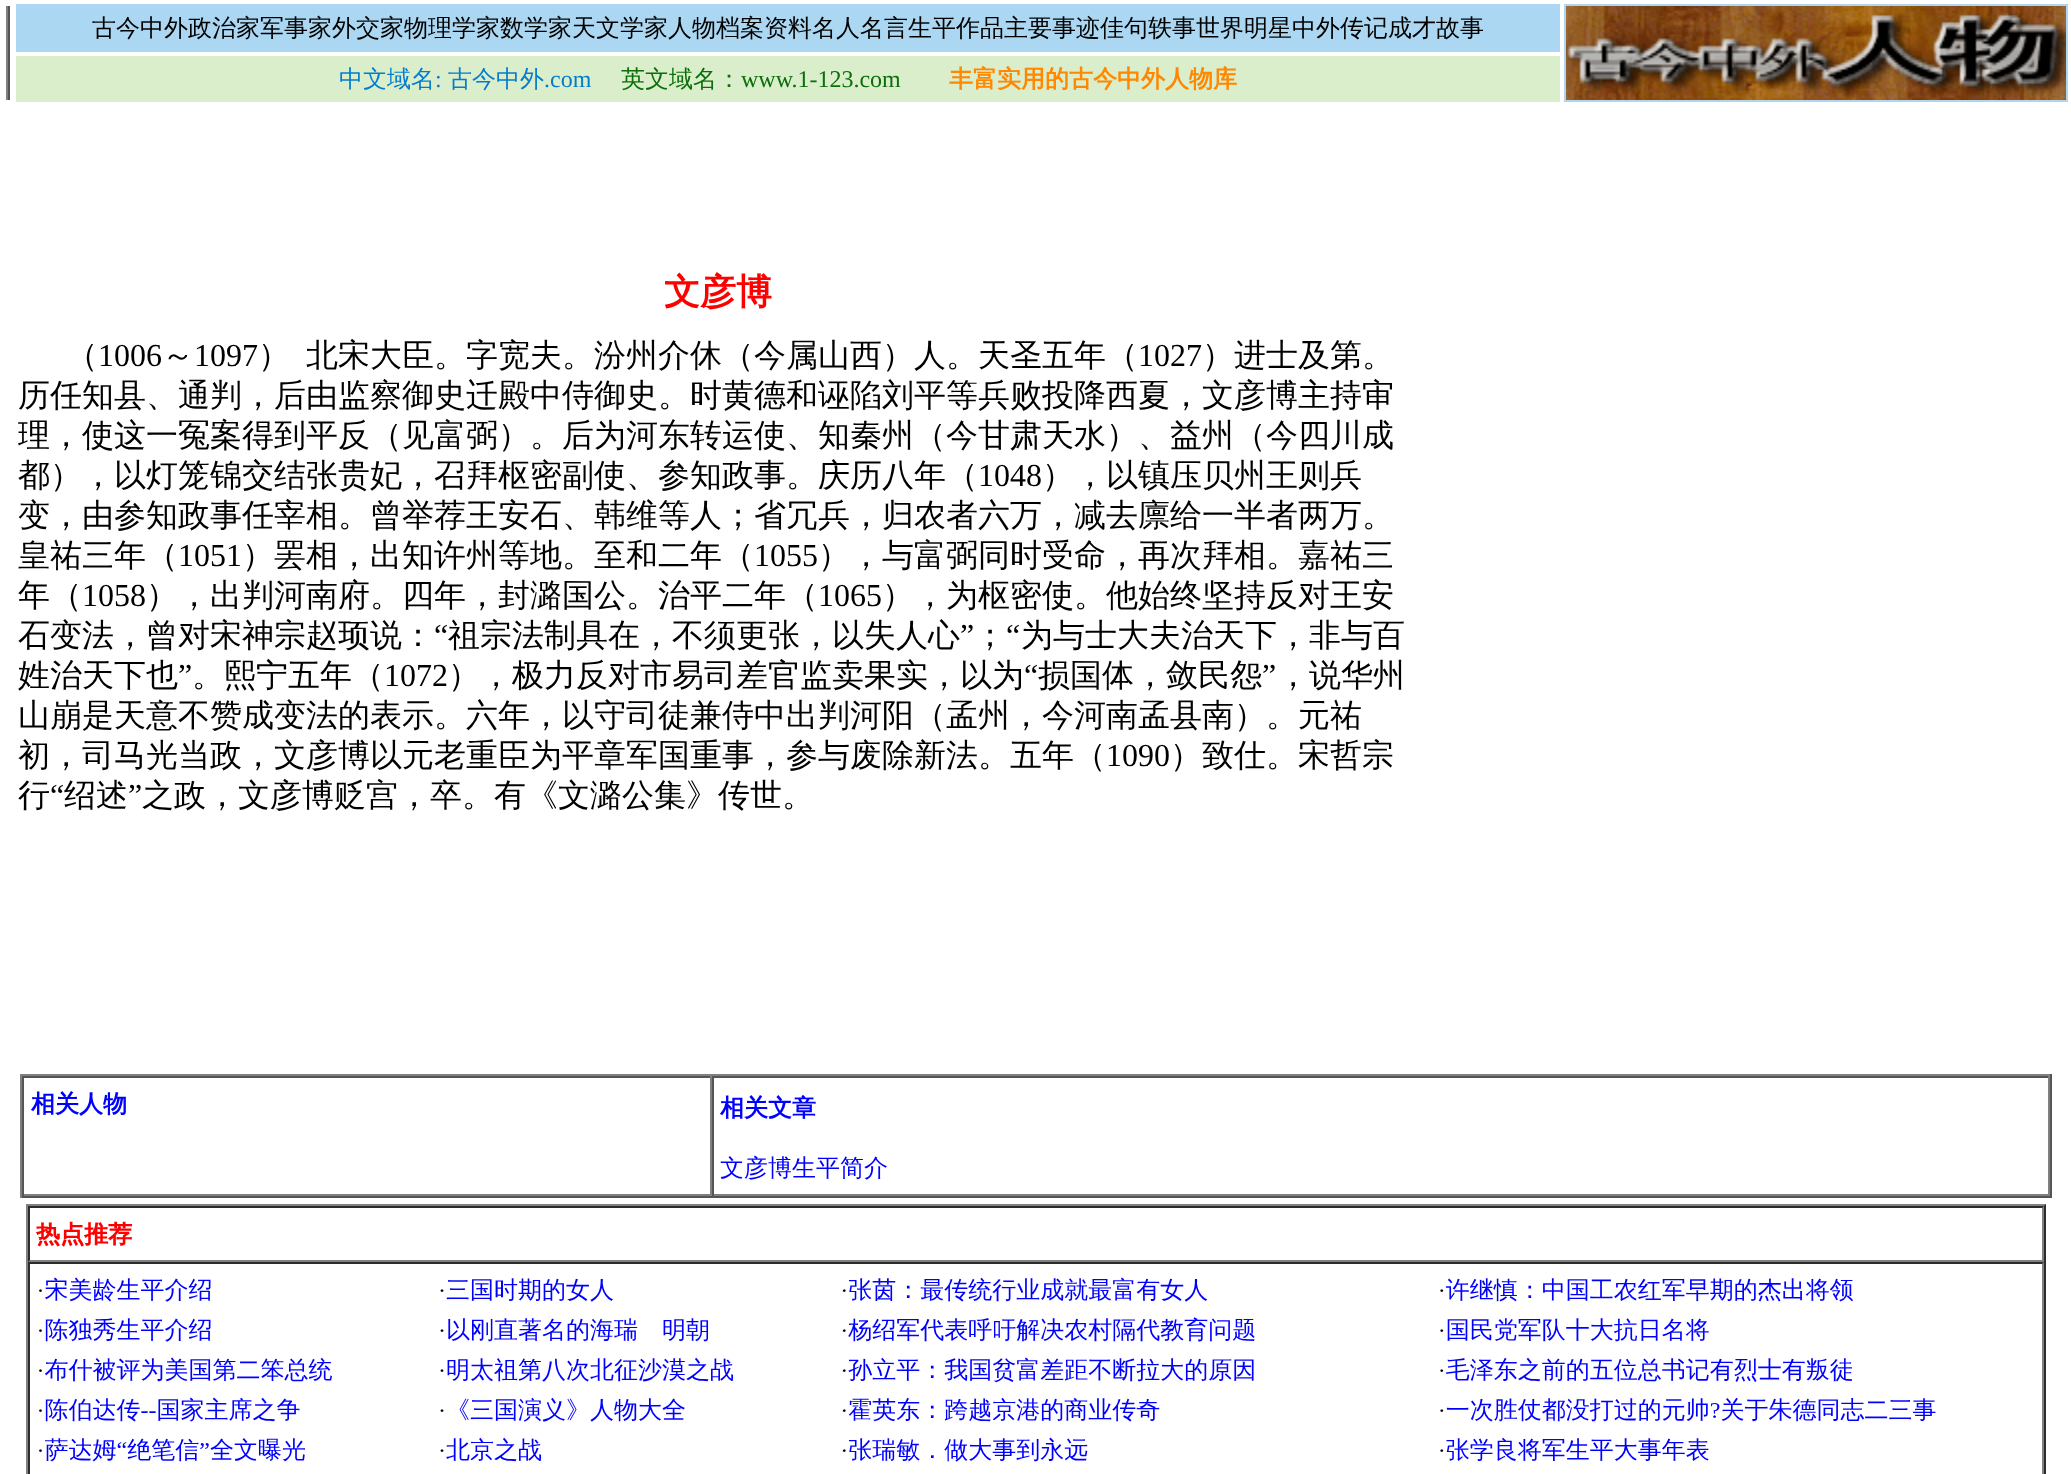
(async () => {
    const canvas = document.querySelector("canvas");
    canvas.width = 2071;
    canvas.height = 1474;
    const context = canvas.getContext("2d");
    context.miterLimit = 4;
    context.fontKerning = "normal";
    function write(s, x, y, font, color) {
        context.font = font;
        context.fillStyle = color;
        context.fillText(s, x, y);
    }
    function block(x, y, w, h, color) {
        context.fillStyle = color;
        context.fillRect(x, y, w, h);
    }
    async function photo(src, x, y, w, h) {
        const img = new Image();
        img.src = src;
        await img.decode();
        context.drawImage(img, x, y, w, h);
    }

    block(0, 0, 2071, 1474, "rgb(255, 255, 255)");
    block(8, 6, 2, 94, "rgb(85, 85, 85)");
    block(6, 98, 4, 2, "rgb(85, 85, 85)");
    block(6, 6, 2, 94, "rgb(128, 128, 128)");
    block(16, 4, 1544, 48, "rgb(171, 215, 242)");
    write("古今中外政治家军事家外交家物理学家数学家天文学家人物档案资料名人名言生平作品主要事迹佳句轶事世界明星中外传记成才故事", 92, 36, "500 24px WenQuanYi Zen Hei", "rgb(0, 0, 0)");
    block(1564, 4, 504, 98, "rgb(171, 215, 242)");
    await photo("media/1.png", 1566, 6, 500, 94);
    block(16, 56, 1544, 46, "rgb(219, 238, 204)");
    write("中文域名", 339, 87, "500 24px WenQuanYi Zen Hei", "rgb(2, 125, 205)");
    write(":", 435, 87, "24px Liberation Serif", "rgb(2, 125, 205)");
    write("古今中外", 448, 87, "500 24px WenQuanYi Zen Hei", "rgb(2, 125, 205)");
    write(".com", 544, 87, "24px Liberation Serif", "rgb(2, 125, 205)");
    write("英文域名：", 621, 87, "500 24px WenQuanYi Zen Hei", "rgb(12, 110, 9)");
    write("www.1-123.com", 741, 87, "24px Liberation Serif", "rgb(12, 110, 9)");
    write("丰富实用的古今中外人物库", 949, 87, "bold 24px WenQuanYi Zen Hei", "rgb(255, 136, 0)");
    write("文彦博", 664, 304, "bold 36px WenQuanYi Zen Hei", "rgb(255, 0, 0)");
    write("（", 66, 366, "500 32px WenQuanYi Zen Hei", "rgb(0, 0, 0)");
    write("1006", 98, 366, "32px Liberation Serif", "rgb(0, 0, 0)");
    write("～", 162, 366, "500 32px WenQuanYi Zen Hei", "rgb(0, 0, 0)");
    write("1097", 194, 366, "32px Liberation Serif", "rgb(0, 0, 0)");
    write("）", 258, 366, "500 32px WenQuanYi Zen Hei", "rgb(0, 0, 0)");
    write("北宋大臣。字宽夫。汾州介休（今属山西）人。天圣五年（", 306, 366, "500 32px WenQuanYi Zen Hei", "rgb(0, 0, 0)");
    write("1027", 1138, 366, "32px Liberation Serif", "rgb(0, 0, 0)");
    write("）进士及第。", 1202, 366, "500 32px WenQuanYi Zen Hei", "rgb(0, 0, 0)");
    write("历任知县、通判，后由监察御史迁殿中侍御史。时黄德和诬陷刘平等兵败投降西夏，文彦博主持审", 18, 406, "500 32px WenQuanYi Zen Hei", "rgb(0, 0, 0)");
    write("理，使这一冤案得到平反（见富弼）。后为河东转运使、知秦州（今甘肃天水）、益州（今四川成", 18, 446, "500 32px WenQuanYi Zen Hei", "rgb(0, 0, 0)");
    write("都），以灯笼锦交结张贵妃，召拜枢密副使、参知政事。庆历八年（", 18, 486, "500 32px WenQuanYi Zen Hei", "rgb(0, 0, 0)");
    write("1048", 978, 486, "32px Liberation Serif", "rgb(0, 0, 0)");
    write("），以镇压贝州王则兵", 1042, 486, "500 32px WenQuanYi Zen Hei", "rgb(0, 0, 0)");
    write("变，由参知政事任宰相。曾举荐王安石、韩维等人；省冗兵，归农者六万，减去廪给一半者两万。", 18, 526, "500 32px WenQuanYi Zen Hei", "rgb(0, 0, 0)");
    write("皇祐三年（", 18, 566, "500 32px WenQuanYi Zen Hei", "rgb(0, 0, 0)");
    write("1051", 178, 566, "32px Liberation Serif", "rgb(0, 0, 0)");
    write("）罢相，出知许州等地。至和二年（", 242, 566, "500 32px WenQuanYi Zen Hei", "rgb(0, 0, 0)");
    write("1055", 754, 566, "32px Liberation Serif", "rgb(0, 0, 0)");
    write("），与富弼同时受命，再次拜相。嘉祐三", 818, 566, "500 32px WenQuanYi Zen Hei", "rgb(0, 0, 0)");
    write("年（", 18, 606, "500 32px WenQuanYi Zen Hei", "rgb(0, 0, 0)");
    write("1058", 82, 606, "32px Liberation Serif", "rgb(0, 0, 0)");
    write("），出判河南府。四年，封潞国公。治平二年（", 146, 606, "500 32px WenQuanYi Zen Hei", "rgb(0, 0, 0)");
    write("1065", 818, 606, "32px Liberation Serif", "rgb(0, 0, 0)");
    write("），为枢密使。他始终坚持反对王安", 882, 606, "500 32px WenQuanYi Zen Hei", "rgb(0, 0, 0)");
    write("石变法，曾对宋神宗赵顼说：", 18, 646, "500 32px WenQuanYi Zen Hei", "rgb(0, 0, 0)");
    write("“", 434, 646, "32px Liberation Serif", "rgb(0, 0, 0)");
    write("祖宗法制具在，不须更张，以失人心", 448, 646, "500 32px WenQuanYi Zen Hei", "rgb(0, 0, 0)");
    write("”", 960, 646, "32px Liberation Serif", "rgb(0, 0, 0)");
    write("；", 974, 646, "500 32px WenQuanYi Zen Hei", "rgb(0, 0, 0)");
    write("“", 1006, 646, "32px Liberation Serif", "rgb(0, 0, 0)");
    write("为与士大夫治天下，非与百", 1021, 646, "500 32px WenQuanYi Zen Hei", "rgb(0, 0, 0)");
    write("姓治天下也", 18, 686, "500 32px WenQuanYi Zen Hei", "rgb(0, 0, 0)");
    write("”", 178, 686, "32px Liberation Serif", "rgb(0, 0, 0)");
    write("。熙宁五年（", 192, 686, "500 32px WenQuanYi Zen Hei", "rgb(0, 0, 0)");
    write("1072", 384, 686, "32px Liberation Serif", "rgb(0, 0, 0)");
    write("），极力反对市易司差官监卖果实，以为", 448, 686, "500 32px WenQuanYi Zen Hei", "rgb(0, 0, 0)");
    write("“", 1024, 686, "32px Liberation Serif", "rgb(0, 0, 0)");
    write("损国体，敛民怨", 1038, 686, "500 32px WenQuanYi Zen Hei", "rgb(0, 0, 0)");
    write("”", 1262, 686, "32px Liberation Serif", "rgb(0, 0, 0)");
    write("，说华州", 1277, 686, "500 32px WenQuanYi Zen Hei", "rgb(0, 0, 0)");
    write("山崩是天意不赞成变法的表示。六年，以守司徒兼侍中出判河阳（孟州，今河南孟县南）。元祐", 18, 726, "500 32px WenQuanYi Zen Hei", "rgb(0, 0, 0)");
    write("初，司马光当政，文彦博以元老重臣为平章军国重事，参与废除新法。五年（", 18, 766, "500 32px WenQuanYi Zen Hei", "rgb(0, 0, 0)");
    write("1090", 1106, 766, "32px Liberation Serif", "rgb(0, 0, 0)");
    write("）致仕。宋哲宗", 1170, 766, "500 32px WenQuanYi Zen Hei", "rgb(0, 0, 0)");
    write("行", 18, 806, "500 32px WenQuanYi Zen Hei", "rgb(0, 0, 0)");
    write("“", 50, 806, "32px Liberation Serif", "rgb(0, 0, 0)");
    write("绍述", 64, 806, "500 32px WenQuanYi Zen Hei", "rgb(0, 0, 0)");
    write("”", 128, 806, "32px Liberation Serif", "rgb(0, 0, 0)");
    write("之政，文彦博贬宫，卒。有《文潞公集》传世。", 142, 806, "500 32px WenQuanYi Zen Hei", "rgb(0, 0, 0)");
    block(20, 1074, 2032, 2, "rgb(128, 128, 128)");
    block(2050, 1074, 2, 124, "rgb(85, 85, 85)");
    block(20, 1196, 2032, 2, "rgb(85, 85, 85)");
    block(20, 1074, 2, 124, "rgb(128, 128, 128)");
    block(22, 1076, 2028, 2, "rgb(85, 85, 85)");
    block(710, 1076, 2, 120, "rgb(128, 128, 128)");
    block(22, 1194, 690, 2, "rgb(128, 128, 128)");
    block(22, 1076, 2, 120, "rgb(85, 85, 85)");
    write("相关人物", 31, 1112, "bold 24px WenQuanYi Zen Hei", "rgb(0, 0, 255)");
    block(2048, 1076, 2, 120, "rgb(128, 128, 128)");
    block(712, 1194, 1338, 2, "rgb(128, 128, 128)");
    block(712, 1076, 2, 120, "rgb(85, 85, 85)");
    write("相关文章", 720, 1116, "bold 24px WenQuanYi Zen Hei", "rgb(0, 0, 255)");
    write("文彦博生平简介", 720, 1176, "500 24px WenQuanYi Zen Hei", "rgb(0, 0, 255)");
    await photo("media/2.png", 26, 1204, 2020, 270);
})();
